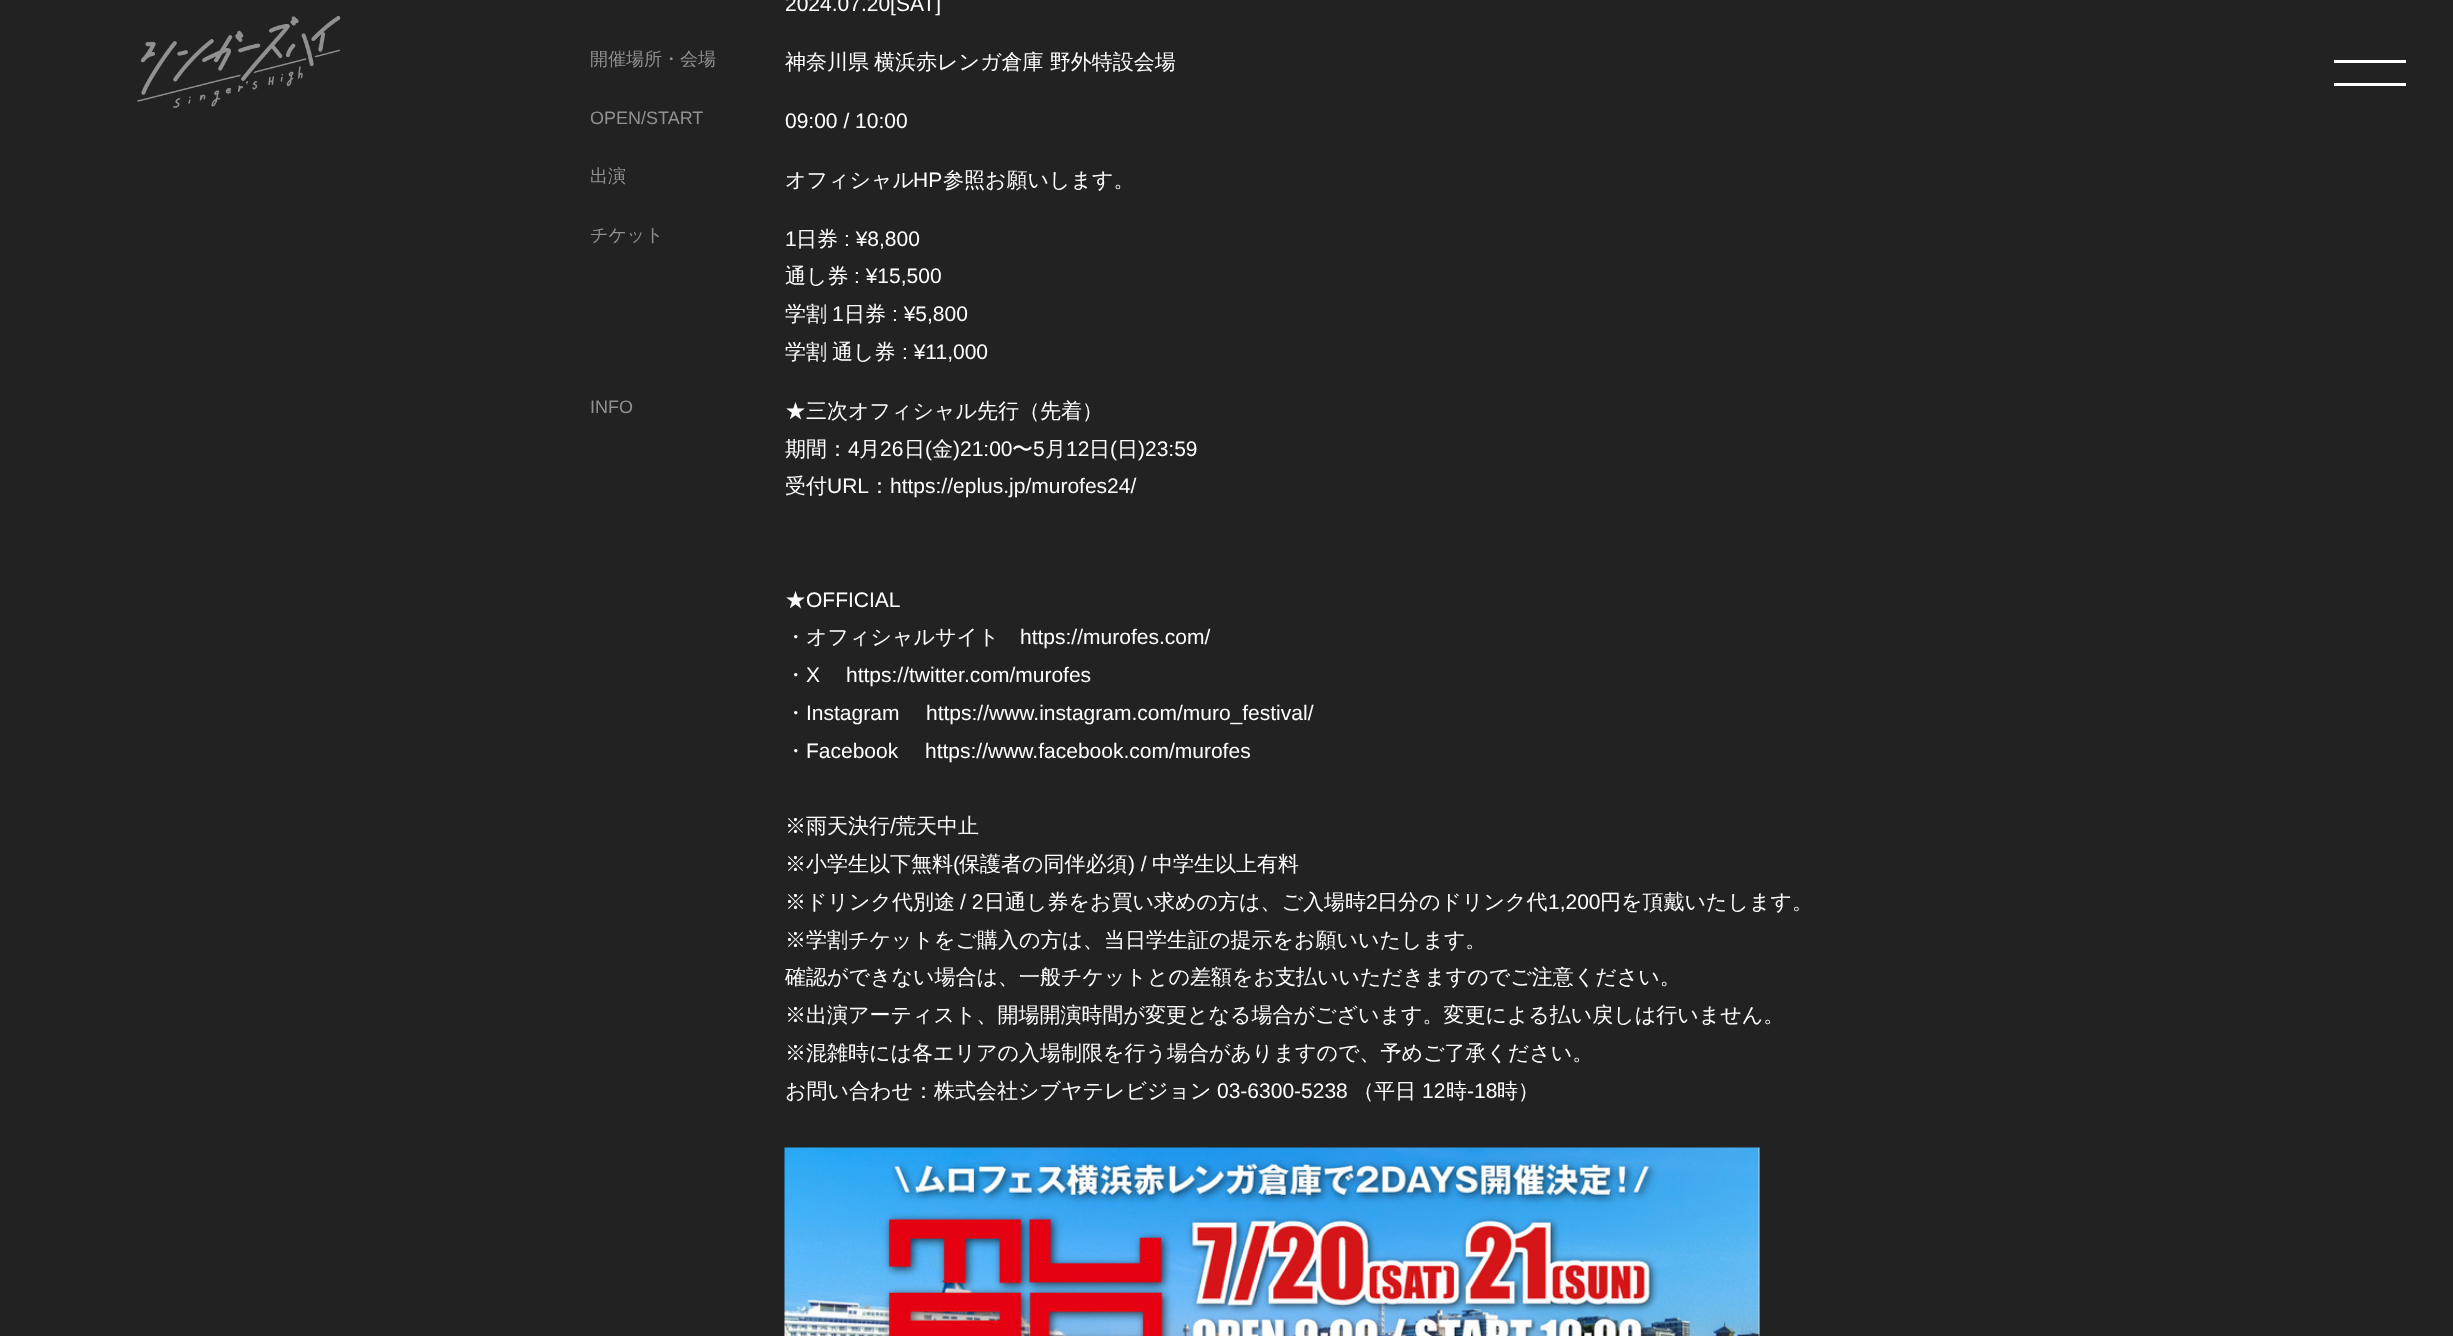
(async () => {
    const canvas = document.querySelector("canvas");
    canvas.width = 2453;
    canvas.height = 1336;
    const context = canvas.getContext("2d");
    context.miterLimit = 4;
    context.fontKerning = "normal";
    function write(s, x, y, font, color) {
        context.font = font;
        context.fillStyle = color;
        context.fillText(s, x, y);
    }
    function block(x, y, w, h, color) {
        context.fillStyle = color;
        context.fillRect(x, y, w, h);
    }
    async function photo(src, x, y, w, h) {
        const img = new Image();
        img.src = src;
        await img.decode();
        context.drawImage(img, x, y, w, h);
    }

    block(0, 0, 2453, 1336, "rgb(34, 34, 34)");
    await photo("media/1.png", 137, 15, 204, 93);
    write("2024.07.20[SAT]", 785, 11, "21px Liberation Sans", "rgb(255, 255, 255)");
    write("開催場所・会場", 590, 65, "500 18px WenQuanYi Zen Hei", "rgb(145, 145, 145)");
    write("神奈川県", 785, 69, "500 21px WenQuanYi Zen Hei", "rgb(255, 255, 255)");
    write("横浜赤レンガ倉庫 野外特設会場", 874, 69, "500 21px WenQuanYi Zen Hei", "rgb(255, 255, 255)");
    write("OPEN/START", 590, 124, "18px Liberation Sans", "rgb(145, 145, 145)");
    write("09:00 / 10:00", 785, 128, "21px Liberation Sans", "rgb(255, 255, 255)");
    write("出演", 590, 182, "500 18px WenQuanYi Zen Hei", "rgb(145, 145, 145)");
    write("オフィシャル", 785, 187, "500 21px WenQuanYi Zen Hei", "rgb(255, 255, 255)");
    write("HP", 913, 187, "21px Liberation Sans", "rgb(255, 255, 255)");
    write("参照お願いします。", 943, 187, "500 21px WenQuanYi Zen Hei", "rgb(255, 255, 255)");
    write("チケット", 590, 241, "500 18px WenQuanYi Zen Hei", "rgb(145, 145, 145)");
    write("1", 785, 246, "21px Liberation Sans", "rgb(255, 255, 255)");
    write("日券", 796, 246, "500 21px WenQuanYi Zen Hei", "rgb(255, 255, 255)");
    write(": ¥8,800", 844, 246, "21px Liberation Sans", "rgb(255, 255, 255)");
    write("通し券", 785, 283, "500 21px WenQuanYi Zen Hei", "rgb(255, 255, 255)");
    write(": ¥15,500", 854, 283, "21px Liberation Sans", "rgb(255, 255, 255)");
    write("学割", 785, 321, "500 21px WenQuanYi Zen Hei", "rgb(255, 255, 255)");
    write("1", 832, 321, "21px Liberation Sans", "rgb(255, 255, 255)");
    write("日券", 844, 321, "500 21px WenQuanYi Zen Hei", "rgb(255, 255, 255)");
    write(": ¥5,800", 892, 321, "21px Liberation Sans", "rgb(255, 255, 255)");
    write("学割", 785, 359, "500 21px WenQuanYi Zen Hei", "rgb(255, 255, 255)");
    write("通し券", 832, 359, "500 21px WenQuanYi Zen Hei", "rgb(255, 255, 255)");
    write(": ¥11,000", 902, 359, "21px Liberation Sans", "rgb(255, 255, 255)");
    write("INFO", 590, 413, "18px Liberation Sans", "rgb(145, 145, 145)");
    write("★三次オフィシャル先行（先着）", 785, 418, "500 21px WenQuanYi Zen Hei", "rgb(255, 255, 255)");
    write("期間：", 785, 456, "500 21px WenQuanYi Zen Hei", "rgb(255, 255, 255)");
    write("4", 848, 456, "21px Liberation Sans", "rgb(255, 255, 255)");
    write("月", 859, 456, "500 21px WenQuanYi Zen Hei", "rgb(255, 255, 255)");
    write("26", 880, 456, "21px Liberation Sans", "rgb(255, 255, 255)");
    write("日", 904, 456, "500 21px WenQuanYi Zen Hei", "rgb(255, 255, 255)");
    write("(", 925, 456, "21px Liberation Sans", "rgb(255, 255, 255)");
    write("金", 932, 456, "500 21px WenQuanYi Zen Hei", "rgb(255, 255, 255)");
    write(")21:00", 953, 456, "21px Liberation Sans", "rgb(255, 255, 255)");
    write("〜", 1012, 456, "500 21px WenQuanYi Zen Hei", "rgb(255, 255, 255)");
    write("5", 1033, 456, "21px Liberation Sans", "rgb(255, 255, 255)");
    write("月", 1045, 456, "500 21px WenQuanYi Zen Hei", "rgb(255, 255, 255)");
    write("12", 1066, 456, "21px Liberation Sans", "rgb(255, 255, 255)");
    write("日", 1089, 456, "500 21px WenQuanYi Zen Hei", "rgb(255, 255, 255)");
    write("(", 1110, 456, "21px Liberation Sans", "rgb(255, 255, 255)");
    write("日", 1117, 456, "500 21px WenQuanYi Zen Hei", "rgb(255, 255, 255)");
    write(")23:59", 1138, 456, "21px Liberation Sans", "rgb(255, 255, 255)");
    write("受付", 785, 493, "500 21px WenQuanYi Zen Hei", "rgb(255, 255, 255)");
    write("URL", 827, 493, "21px Liberation Sans", "rgb(255, 255, 255)");
    write("：", 869, 493, "500 21px WenQuanYi Zen Hei", "rgb(255, 255, 255)");
    write("https://eplus.jp/murofes24/", 890, 493, "21px Liberation Sans", "rgb(255, 255, 255)");
    write("★", 785, 607, "500 21px WenQuanYi Zen Hei", "rgb(255, 255, 255)");
    write("OFFICIAL", 806, 607, "21px Liberation Sans", "rgb(255, 255, 255)");
    write("・オフィシャルサイト", 785, 644, "500 21px WenQuanYi Zen Hei", "rgb(255, 255, 255)");
    write("https://murofes.com/", 1020, 644, "21px Liberation Sans", "rgb(255, 255, 255)");
    write("・", 785, 682, "500 21px WenQuanYi Zen Hei", "rgb(255, 255, 255)");
    write("X", 806, 682, "21px Liberation Sans", "rgb(255, 255, 255)");
    write("https://twitter.com/murofes", 846, 682, "21px Liberation Sans", "rgb(255, 255, 255)");
    write("・", 785, 720, "500 21px WenQuanYi Zen Hei", "rgb(255, 255, 255)");
    write("Instagram", 806, 720, "21px Liberation Sans", "rgb(255, 255, 255)");
    write("https://www.instagram.com/muro_festival/", 926, 720, "21px Liberation Sans", "rgb(255, 255, 255)");
    write("・", 785, 758, "500 21px WenQuanYi Zen Hei", "rgb(255, 255, 255)");
    write("Facebook", 806, 758, "21px Liberation Sans", "rgb(255, 255, 255)");
    write("https://www.facebook.com/murofes", 925, 758, "21px Liberation Sans", "rgb(255, 255, 255)");
    write("※雨天決行", 785, 833, "500 21px WenQuanYi Zen Hei", "rgb(255, 255, 255)");
    write("/", 890, 833, "21px Liberation Sans", "rgb(255, 255, 255)");
    write("荒天中止", 895, 833, "500 21px WenQuanYi Zen Hei", "rgb(255, 255, 255)");
    write("※小学生以下無料", 785, 871, "500 21px WenQuanYi Zen Hei", "rgb(255, 255, 255)");
    write("(", 953, 871, "21px Liberation Sans", "rgb(255, 255, 255)");
    write("保護者の同伴必須", 959, 871, "500 21px WenQuanYi Zen Hei", "rgb(255, 255, 255)");
    write(") /", 1128, 871, "21px Liberation Sans", "rgb(255, 255, 255)");
    write("中学生以上有料", 1152, 871, "500 21px WenQuanYi Zen Hei", "rgb(255, 255, 255)");
    write("※ドリンク代別途", 785, 909, "500 21px WenQuanYi Zen Hei", "rgb(255, 255, 255)");
    write("/ 2", 960, 909, "21px Liberation Sans", "rgb(255, 255, 255)");
    write("日通し券をお買い求めの方は、ご入場時", 984, 909, "500 21px WenQuanYi Zen Hei", "rgb(255, 255, 255)");
    write("2", 1366, 909, "21px Liberation Sans", "rgb(255, 255, 255)");
    write("日分のドリンク代", 1377, 909, "500 21px WenQuanYi Zen Hei", "rgb(255, 255, 255)");
    write("1,200", 1548, 909, "21px Liberation Sans", "rgb(255, 255, 255)");
    write("円を頂戴いたします。", 1600, 909, "500 21px WenQuanYi Zen Hei", "rgb(255, 255, 255)");
    write("※学割チケットをご購入の方は、当日学生証の提示をお願いいたします。", 785, 947, "500 21px WenQuanYi Zen Hei", "rgb(255, 255, 255)");
    write("確認ができない場合は、一般チケットとの差額をお支払いいただきますのでご注意ください。", 785, 984, "500 21px WenQuanYi Zen Hei", "rgb(255, 255, 255)");
    write("※出演アーティスト、開場開演時間が変更となる場合がございます。変更による払い戻しは行いません。", 785, 1022, "500 21px WenQuanYi Zen Hei", "rgb(255, 255, 255)");
    write("※混雑時には各エリアの入場制限を行う場合がありますので、予めご了承ください。", 785, 1060, "500 21px WenQuanYi Zen Hei", "rgb(255, 255, 255)");
    write("お問い合わせ：株式会社シブヤテレビジョン", 785, 1098, "500 21px WenQuanYi Zen Hei", "rgb(255, 255, 255)");
    write("03-6300-5238", 1217, 1098, "21px Liberation Sans", "rgb(255, 255, 255)");
    write("（平日", 1353, 1098, "500 21px WenQuanYi Zen Hei", "rgb(255, 255, 255)");
    write("12", 1422, 1098, "21px Liberation Sans", "rgb(255, 255, 255)");
    write("時", 1446, 1098, "500 21px WenQuanYi Zen Hei", "rgb(255, 255, 255)");
    write("-18", 1467, 1098, "21px Liberation Sans", "rgb(255, 255, 255)");
    write("時）", 1497, 1098, "500 21px WenQuanYi Zen Hei", "rgb(255, 255, 255)");
    await photo("media/2.png", 784, 1147, 976, 189);
    block(2334, 60, 72, 3, "rgb(255, 255, 255)");
    block(2334, 83, 72, 3, "rgb(255, 255, 255)");
})();
